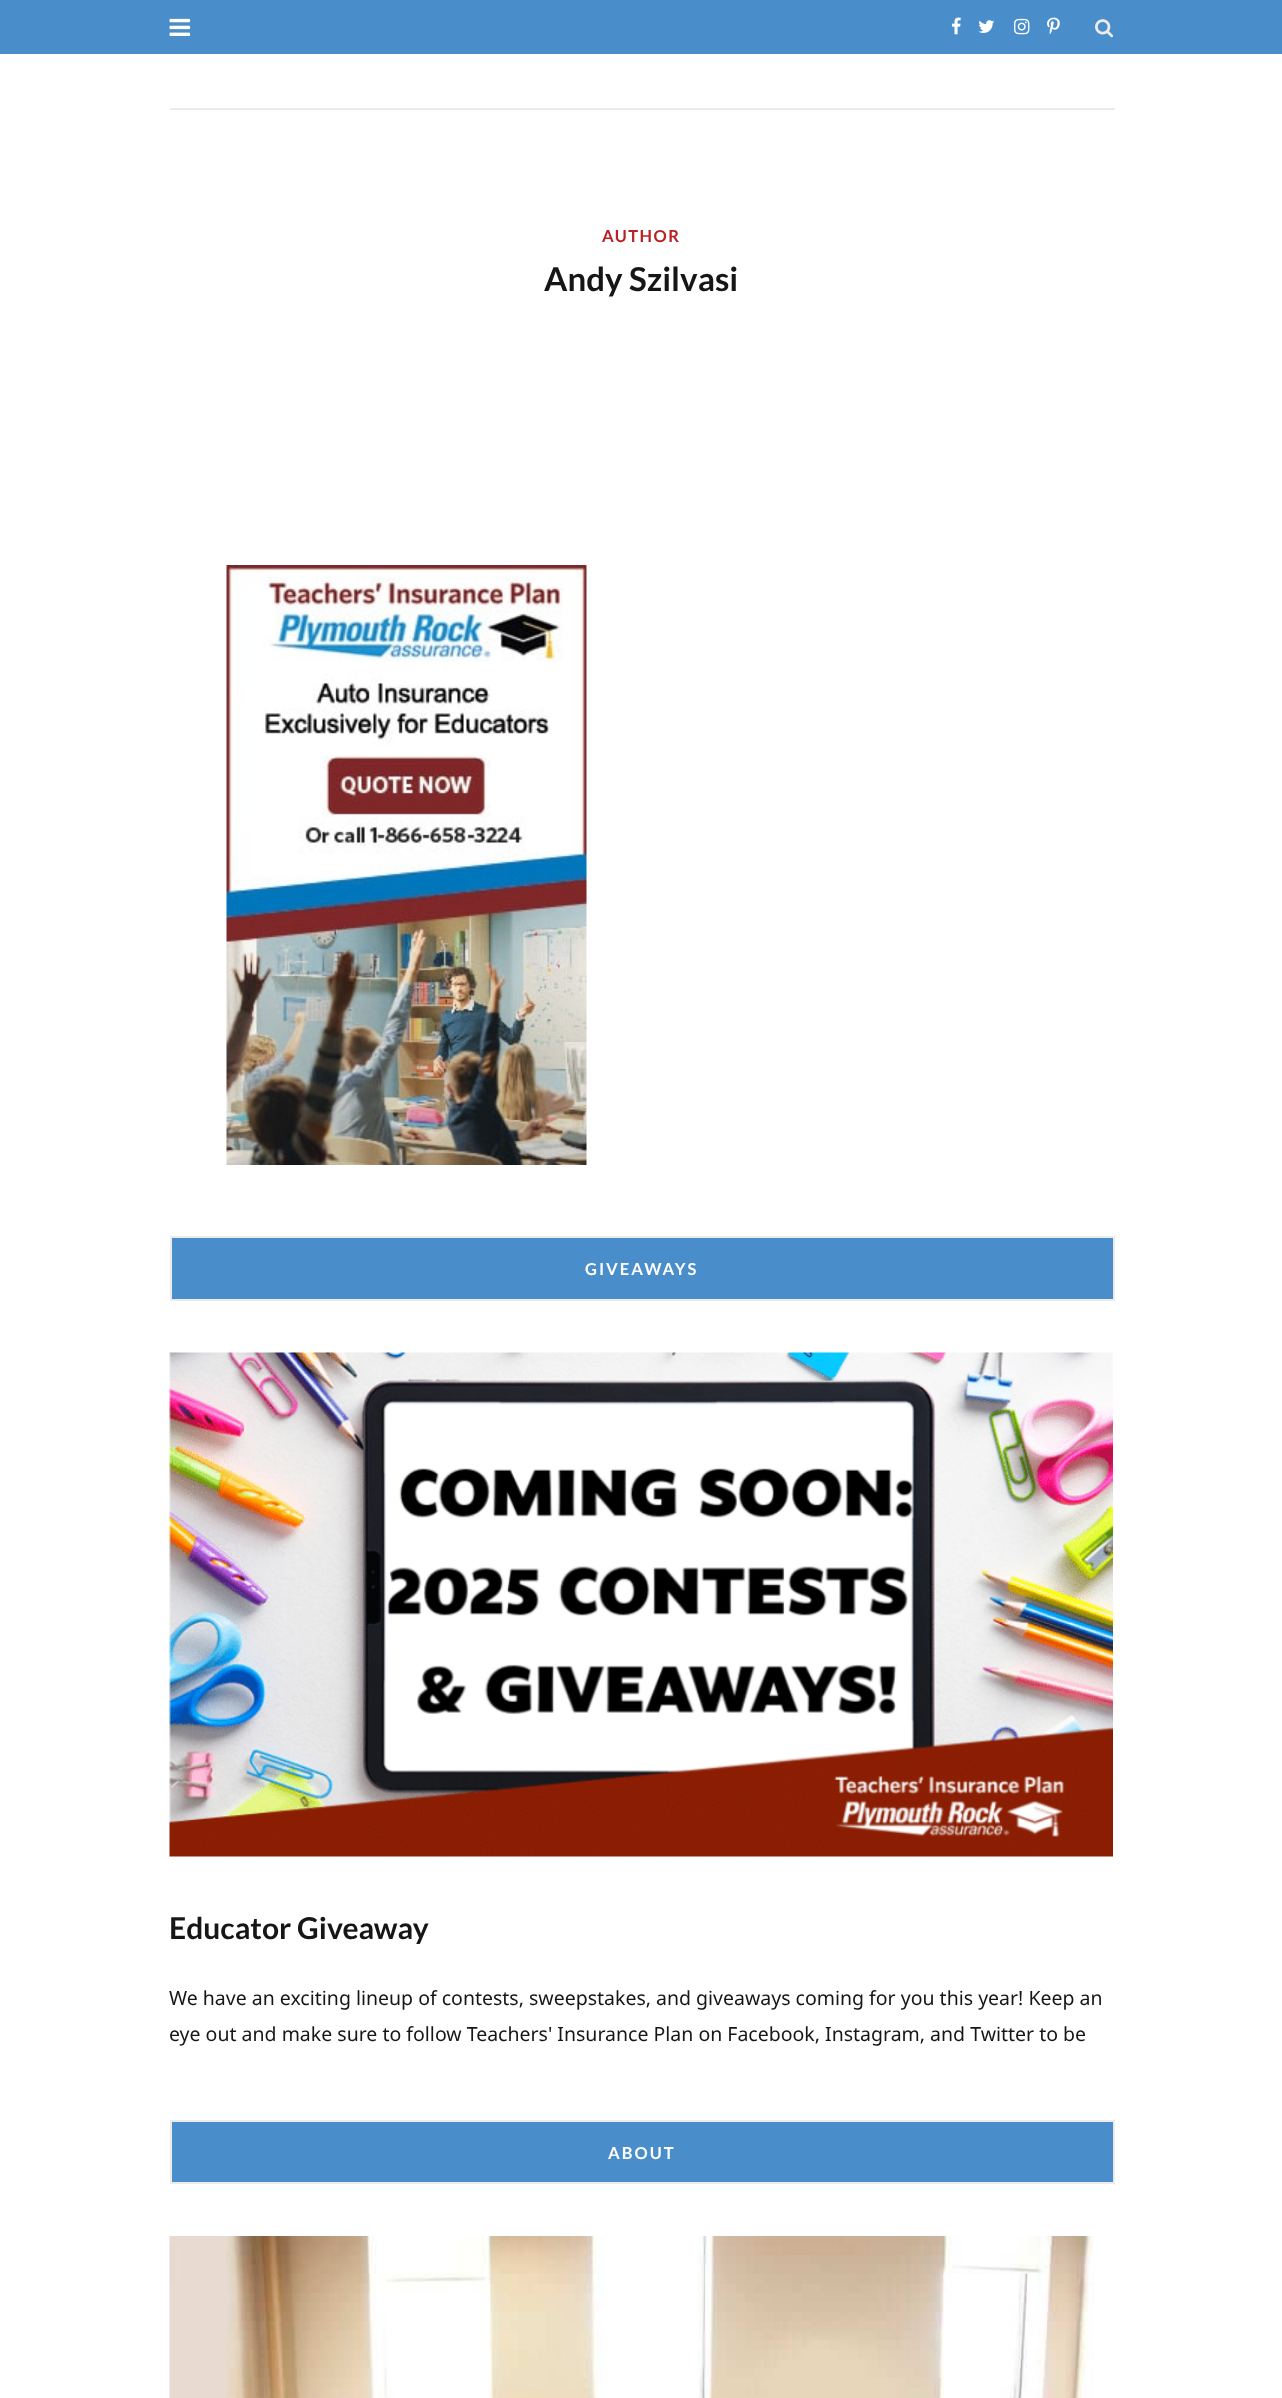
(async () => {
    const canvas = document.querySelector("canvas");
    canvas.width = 1282;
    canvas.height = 2398;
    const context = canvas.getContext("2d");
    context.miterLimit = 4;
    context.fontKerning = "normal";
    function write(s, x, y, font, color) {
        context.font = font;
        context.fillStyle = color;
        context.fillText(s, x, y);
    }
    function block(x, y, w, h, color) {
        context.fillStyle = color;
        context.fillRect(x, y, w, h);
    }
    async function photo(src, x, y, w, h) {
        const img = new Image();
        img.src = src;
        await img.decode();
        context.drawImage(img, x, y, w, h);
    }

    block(0, 0, 1282, 2398, "rgb(255, 255, 255)");
    block(0, 0, 1282, 54, "rgb(73, 141, 203)");
    await photo("media/1.png", 169, 18, 22, 18);
    await photo("media/2.png", 951, 17, 10, 18);
    await photo("media/3.png", 978, 20, 17, 13);
    await photo("media/4.png", 1014, 18, 16, 17);
    await photo("media/5.png", 1047, 17, 13, 18);
    await photo("media/6.png", 1095, 19, 19, 19);
    block(170, 108, 945, 2, "rgb(235, 235, 235)");
    context.letterSpacing = "1.5px";
    write("AUTHOR", 602, 242, "bold 16.5px Lato", "rgb(186, 33, 37)");
    context.letterSpacing = "0px";
    write("Andy Szilvasi", 544, 291, "bold 33px Lato", "rgb(22, 22, 22)");
    await photo("media/7.png", 226, 565, 361, 600);
    context.fillStyle = "rgb(73, 141, 203)";
    context.beginPath();
    context.rect(171, 1237, 943, 63);
    context.fill();
    context.strokeStyle = "rgb(235, 235, 235)";
    context.lineWidth = 2;
    context.stroke();
    context.letterSpacing = "2px";
    write("GIVEAWAYS", 585, 1275, "bold 16.5px Lato", "rgb(255, 255, 255)");
    await photo("media/8.png", 169, 1352, 944, 505);
    context.letterSpacing = "0px";
    write("Educator Giveaway", 169, 1939, "bold 30px Lato", "rgb(22, 22, 22)");
    write("We have an exciting lineup of contests, sweepstakes, and giveaways coming for you this year! Keep an", 169, 2005, "19.5px Noto Sans", "rgb(22, 22, 22)");
    write("eye out and make sure to follow Teachers' Insurance Plan on Facebook, Instagram, and Twitter to be", 169, 2041, "19.5px Noto Sans", "rgb(22, 22, 22)");
    context.fillStyle = "rgb(73, 141, 203)";
    context.beginPath();
    context.rect(171, 2121, 943, 62);
    context.fill();
    context.stroke();
    context.letterSpacing = "2px";
    write("ABOUT", 608, 2159, "bold 16.5px Lato", "rgb(255, 255, 255)");
    await photo("media/9.png", 169, 2236, 925, 162);
})();
